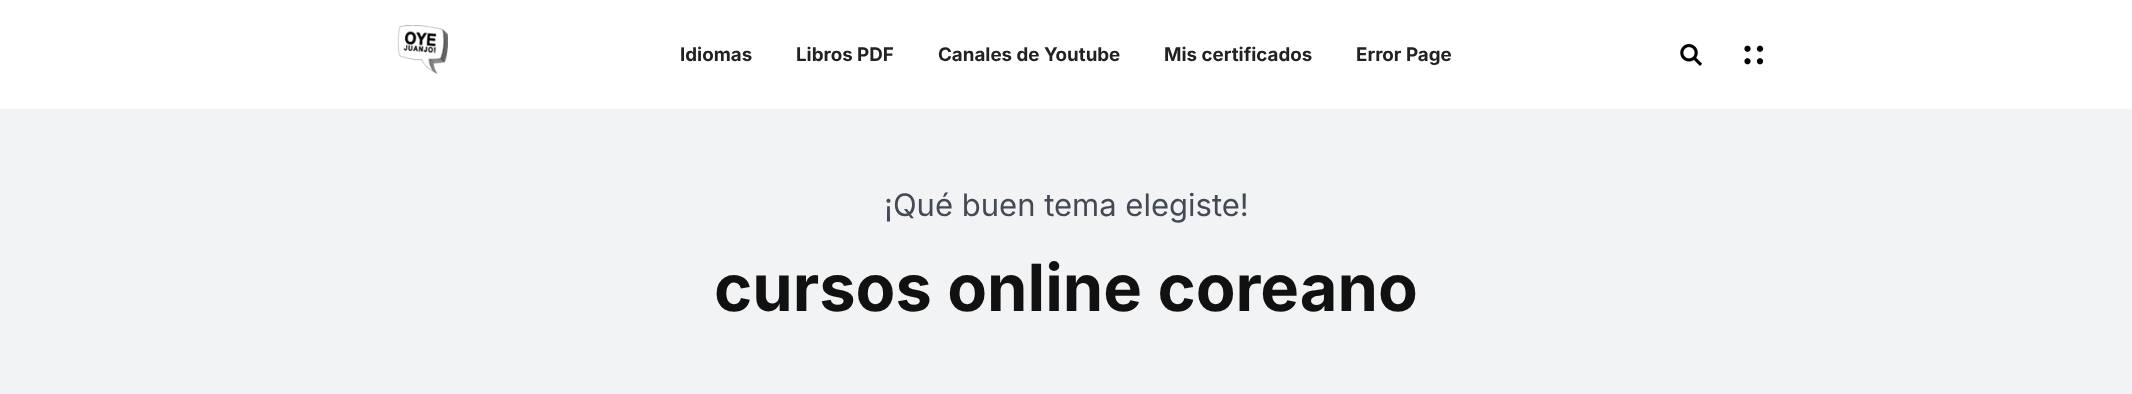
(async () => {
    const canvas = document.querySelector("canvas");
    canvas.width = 2132;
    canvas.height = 394;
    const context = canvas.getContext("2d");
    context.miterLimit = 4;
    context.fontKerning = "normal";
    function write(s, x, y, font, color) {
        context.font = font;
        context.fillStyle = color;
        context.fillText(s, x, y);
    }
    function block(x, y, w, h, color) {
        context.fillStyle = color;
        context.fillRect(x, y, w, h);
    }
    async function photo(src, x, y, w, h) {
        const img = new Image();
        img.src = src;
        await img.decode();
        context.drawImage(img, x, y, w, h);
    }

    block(0, 0, 2132, 394, "rgb(255, 255, 255)");
    await photo("media/1.png", 397, 25, 51, 49);
    write("Idiomas", 680, 61, "bold 18.75px Inter", "rgb(34, 34, 34)");
    write("Libros PDF", 796, 61, "bold 18.75px Inter", "rgb(34, 34, 34)");
    write("Canales de Youtube", 938, 61, "bold 18.75px Inter", "rgb(34, 34, 34)");
    write("Mis certificados", 1164, 61, "bold 18.75px Inter", "rgb(34, 34, 34)");
    write("Error Page", 1356, 61, "bold 18.75px Inter", "rgb(34, 34, 34)");
    await photo("media/2.png", 1680, 44, 23, 22);
    await photo("media/3.png", 1744, 45, 20, 20);
    block(0, 109, 2132, 285, "rgb(242, 243, 244)");
    write("¡Qué buen tema elegiste!", 884, 216, "31px Inter", "rgb(67, 74, 84)");
    write("cursos online coreano", 714, 311, "bold 65px Inter", "rgb(17, 17, 17)");
})();
